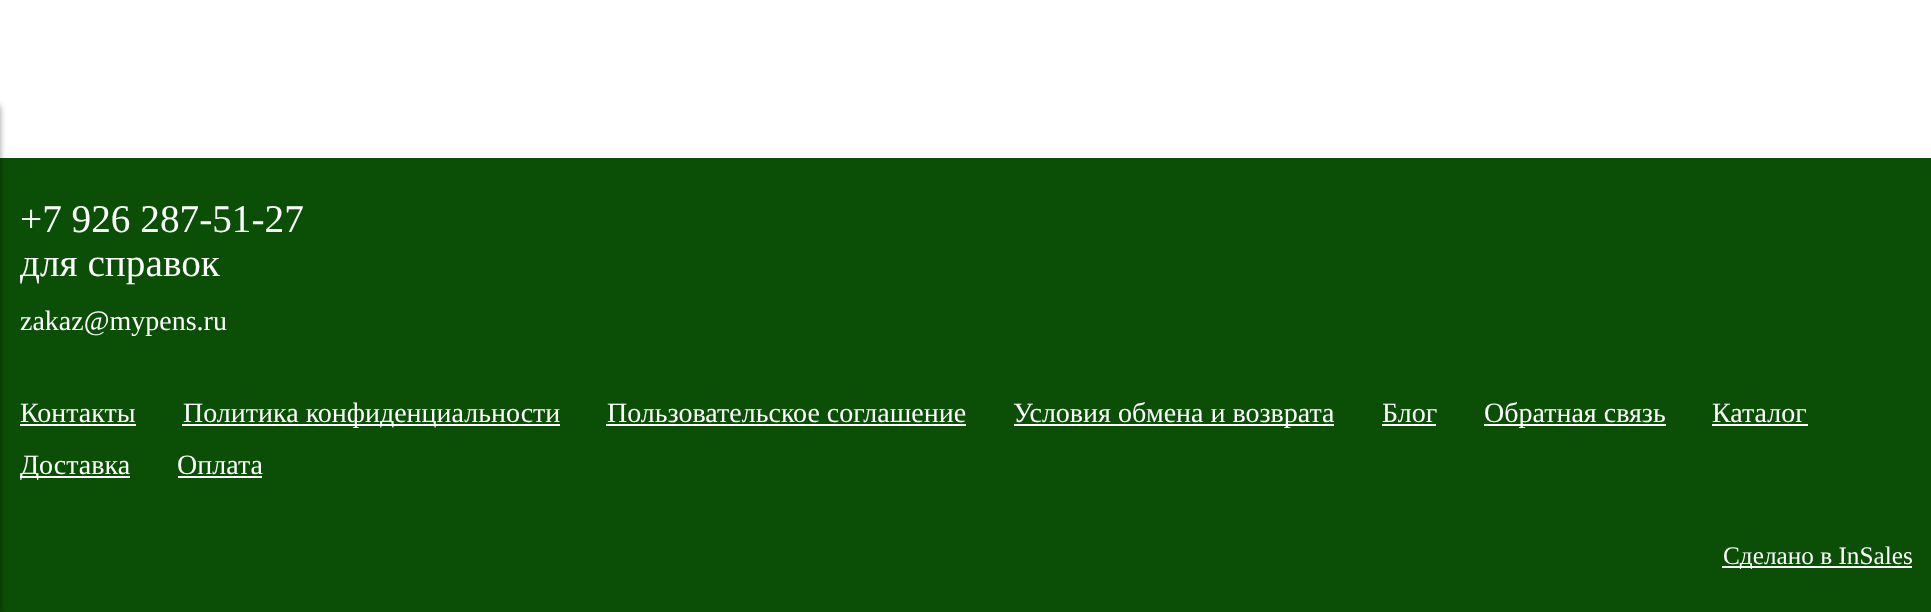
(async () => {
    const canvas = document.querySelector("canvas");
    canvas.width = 1931;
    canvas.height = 612;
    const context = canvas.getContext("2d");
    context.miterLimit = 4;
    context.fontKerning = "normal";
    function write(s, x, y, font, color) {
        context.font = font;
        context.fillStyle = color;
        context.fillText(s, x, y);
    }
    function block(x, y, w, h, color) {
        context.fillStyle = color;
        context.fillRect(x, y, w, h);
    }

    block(0, 0, 1931, 612, "rgb(255, 255, 255)");
    block(0, 158, 1931, 454, "rgb(11, 79, 7)");
    context.fillStyle = "rgba(0, 0, 0, 0.4)";
    context.filter = "blur(3px)";
    context.beginPath();
    context.rect(-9, 106, 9, 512);
    context.fill();
    context.filter = "none";
    write("+7 926 287-51-27", 20, 232, "39.25px Liberation Serif", "rgb(255, 255, 255)");
    write("для справок", 20, 276, "39.25px Liberation Serif", "rgb(255, 255, 255)");
    write("zakaz@mypens.ru", 20, 330, "28px Liberation Serif", "rgb(255, 255, 255)");
    write("Контакты", 20, 422, "28px Liberation Serif", "rgb(255, 255, 255)");
    block(20, 424, 116, 2, "rgb(255, 255, 255)");
    block(182, 424, 378, 2, "rgb(255, 255, 255)");
    write("Политика конфиденциальности", 183, 422, "28px Liberation Serif", "rgb(255, 255, 255)");
    write("Пользовательское соглашение", 607, 422, "28px Liberation Serif", "rgb(255, 255, 255)");
    block(606, 424, 360, 2, "rgb(255, 255, 255)");
    block(1014, 424, 320, 2, "rgb(255, 255, 255)");
    write("Условия обмена и возврата", 1013, 422, "28px Liberation Serif", "rgb(255, 255, 255)");
    write("Блог", 1382, 422, "28px Liberation Serif", "rgb(255, 255, 255)");
    block(1382, 424, 54, 2, "rgb(255, 255, 255)");
    block(1484, 424, 182, 2, "rgb(255, 255, 255)");
    write("Обратная связь", 1484, 422, "28px Liberation Serif", "rgb(255, 255, 255)");
    write("Каталог", 1712, 422, "28px Liberation Serif", "rgb(255, 255, 255)");
    block(1712, 424, 96, 2, "rgb(255, 255, 255)");
    block(20, 476, 110, 2, "rgb(255, 255, 255)");
    write("Доставка", 20, 474, "28px Liberation Serif", "rgb(255, 255, 255)");
    write("Оплата", 177, 474, "28px Liberation Serif", "rgb(255, 255, 255)");
    block(178, 476, 84, 2, "rgb(255, 255, 255)");
    block(1722, 566, 190, 2, "rgb(255, 255, 255)");
    write("Сделано в InSales", 1723, 564, "25.25px Liberation Serif", "rgb(255, 255, 255)");
})();
